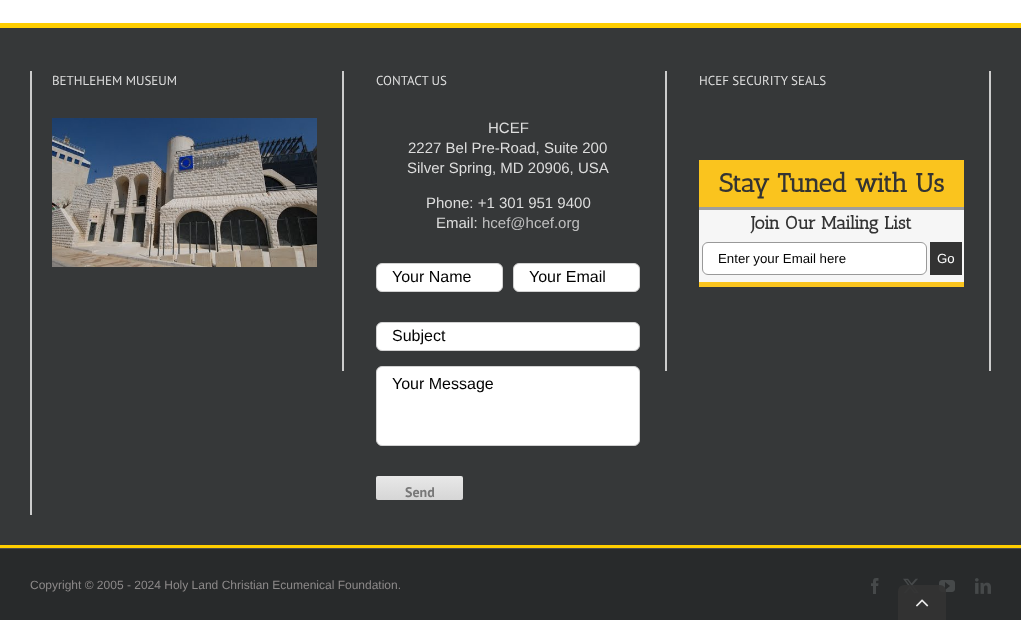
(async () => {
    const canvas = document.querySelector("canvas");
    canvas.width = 1021;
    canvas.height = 620;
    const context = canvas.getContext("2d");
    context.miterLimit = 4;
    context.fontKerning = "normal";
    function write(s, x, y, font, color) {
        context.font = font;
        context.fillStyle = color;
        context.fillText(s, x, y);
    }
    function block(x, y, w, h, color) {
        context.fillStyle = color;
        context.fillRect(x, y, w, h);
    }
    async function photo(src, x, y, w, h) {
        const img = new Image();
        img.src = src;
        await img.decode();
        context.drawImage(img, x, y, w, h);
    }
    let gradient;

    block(0, 0, 1021, 620, "rgb(255, 255, 255)");
    block(0, 28, 1021, 517, "rgb(54, 56, 57)");
    block(0, 23, 1021, 5, "rgb(255, 206, 0)");
    block(0, 545, 1021, 3, "rgb(255, 206, 0)");
    block(30, 71, 2, 444, "rgb(204, 204, 204)");
    block(342, 71, 2, 300, "rgb(204, 204, 204)");
    write("BETHLEHEM MUSEUM", 52, 85, "13px PT Sans", "rgb(221, 221, 221)");
    await photo("media/1.png", 52, 118, 265, 149);
    block(665, 71, 2, 300, "rgb(204, 204, 204)");
    write("CONTACT US", 376, 85, "13px PT Sans", "rgb(221, 221, 221)");
    write("HCEF", 488, 133, "15px Liberation Sans", "rgb(221, 221, 221)");
    write("2227 Bel Pre-Road, Suite 200", 408, 153, "15px Liberation Sans", "rgb(221, 221, 221)");
    write("Silver Spring, MD 20906, USA", 407, 173, "15px Liberation Sans", "rgb(221, 221, 221)");
    write("Phone: +1 301 951 9400", 426, 208, "15px Liberation Sans", "rgb(221, 221, 221)");
    write("Email:", 436, 228, "15px Liberation Sans", "rgb(221, 221, 221)");
    write("hcef@hcef.org", 482, 228, "15px Liberation Sans", "rgb(191, 191, 191)");
    context.fillStyle = "rgb(255, 255, 255)";
    context.beginPath();
    context.roundRect(376.5, 263.5, 126, 28, 5.5);
    context.fill();
    context.strokeStyle = "rgb(210, 210, 210)";
    context.stroke();
    write("Your Name", 392, 282, "16px Liberation Sans", "rgb(2, 2, 2)");
    context.fillStyle = "rgb(255, 255, 255)";
    context.beginPath();
    context.roundRect(513.5, 263.5, 126, 28, 5.5);
    context.fill();
    context.stroke();
    write("Your Email", 529, 282, "16px Liberation Sans", "rgb(2, 2, 2)");
    context.fillStyle = "rgb(255, 255, 255)";
    context.beginPath();
    context.roundRect(376.5, 322.5, 263, 28, 5.5);
    context.fill();
    context.stroke();
    write("Subject", 392, 341, "16px Liberation Sans", "rgb(2, 2, 2)");
    context.fillStyle = "rgb(255, 255, 255)";
    context.beginPath();
    context.roundRect(376.5, 366.5, 263, 79, 5.5);
    context.fill();
    context.stroke();
    write("Your Message", 392, 389, "16px Liberation Sans", "rgb(2, 2, 2)");
    gradient = context.createLinearGradient(420, 476, 420, 500);
    gradient.addColorStop(0, "rgb(232, 232, 232)");
    gradient.addColorStop(1, "rgb(214, 214, 214)");
    context.fillStyle = gradient;
    context.beginPath();
    context.roundRect(376, 476, 87, 24, 2);
    context.fill();
    write("Send", 405, 497, "bold 14px PT Sans", "rgb(120, 120, 120)");
    block(989, 71, 2, 300, "rgb(204, 204, 204)");
    write("HCEF SECURITY SEALS", 699, 85, "13px PT Sans", "rgb(221, 221, 221)");
    block(699, 160, 265, 47, "rgb(250, 196, 30)");
    write("Stay Tuned with Us", 719, 192, "bold 26px Antic Slab", "rgb(51, 51, 51)");
    block(699, 210, 265, 72, "rgb(246, 246, 246)");
    block(699, 207, 265, 3, "rgb(158, 158, 158)");
    block(699, 282, 265, 5, "rgb(250, 196, 30)");
    write("Join Our Mailing List", 751, 229, "bold 18px Antic Slab", "rgb(51, 51, 51)");
    context.fillStyle = "rgb(255, 255, 255)";
    context.beginPath();
    context.roundRect(702.5, 242.5, 224, 32, 5.5);
    context.fill();
    context.strokeStyle = "rgb(153, 153, 153)";
    context.stroke();
    write("Enter your Email here", 718, 263, "13.25px Liberation Sans", "rgb(2, 2, 2)");
    block(930, 242, 32, 33, "rgb(51, 51, 51)");
    write("Go", 937, 263, "13.25px Liberation Sans", "rgb(255, 255, 255)");
    block(0, 549, 1021, 71, "rgb(40, 42, 43)");
    block(0, 548, 1021, 1, "rgb(75, 76, 77)");
    write("Copyright © 2005 - 2024 Holy Land Christian Ecumenical Foundation.", 30, 589, "12px Liberation Sans", "rgb(140, 137, 137)");
    await photo("media/2.png", 871, 578, 8, 16);
    await photo("media/3.png", 903, 578, 16, 16);
    await photo("media/4.png", 939, 580, 16, 12);
    await photo("media/5.png", 975, 578, 16, 16);
    context.fillStyle = "rgba(51, 51, 51, 0.9)";
    context.beginPath();
    context.roundRect(898, 585, 48, 35, [6, 6, 0, 0]);
    context.fill();
    await photo("media/6.png", 916, 599, 13, 8);
})();
